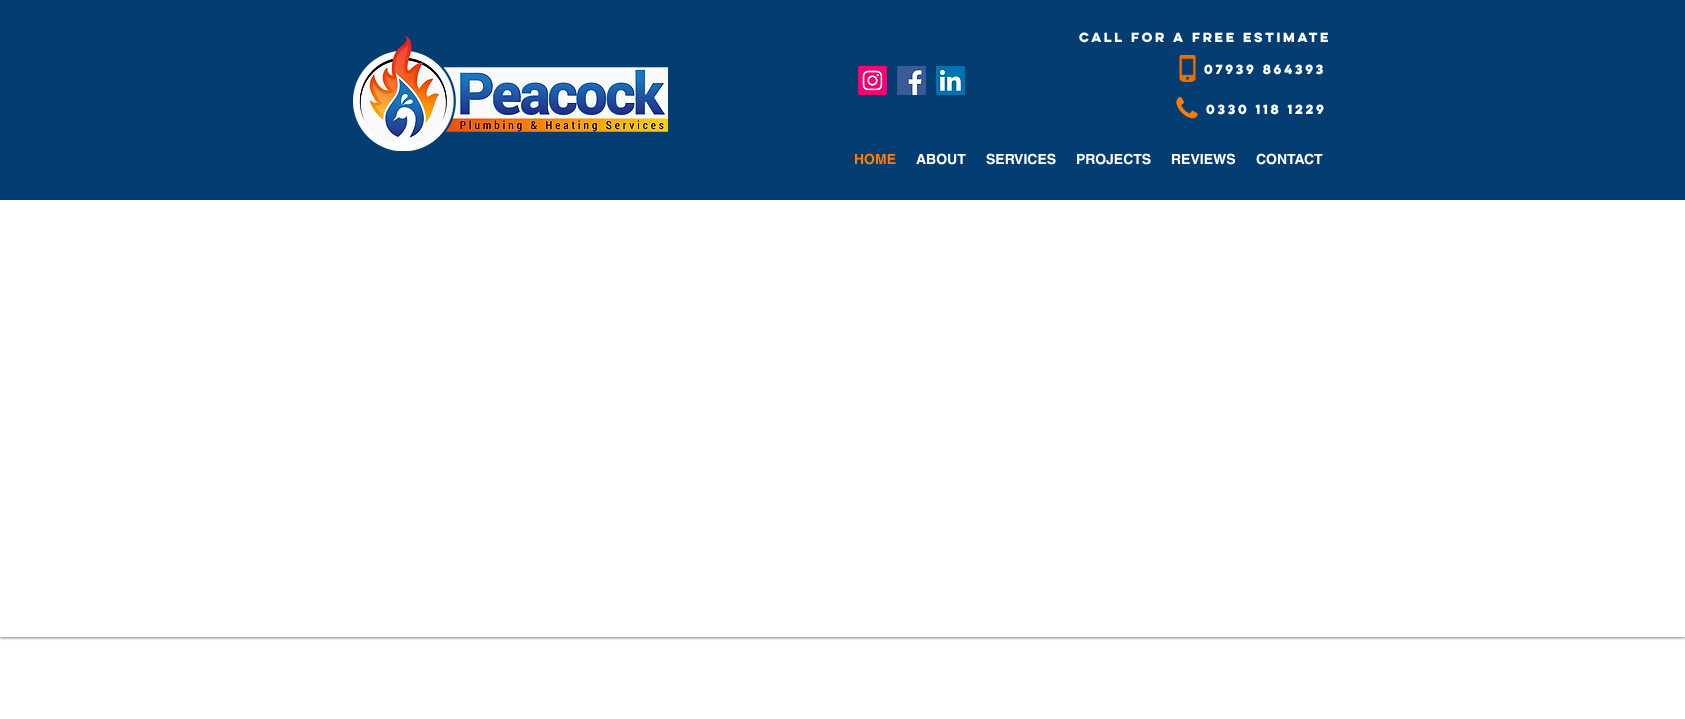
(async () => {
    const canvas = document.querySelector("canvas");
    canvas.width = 1685;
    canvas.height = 719;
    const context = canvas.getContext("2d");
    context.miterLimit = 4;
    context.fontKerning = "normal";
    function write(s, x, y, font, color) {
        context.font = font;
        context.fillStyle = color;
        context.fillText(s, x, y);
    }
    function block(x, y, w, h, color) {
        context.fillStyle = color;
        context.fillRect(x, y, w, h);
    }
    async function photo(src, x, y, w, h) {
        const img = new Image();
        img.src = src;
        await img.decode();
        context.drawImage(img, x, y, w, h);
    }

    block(0, 0, 1685, 719, "rgb(255, 255, 255)");
    context.save();
    context.beginPath();
    context.rect(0, 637, 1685, 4);
    context.clip();
    context.fillStyle = "rgba(0, 0, 0, 0.5)";
    context.filter = "blur(1.5px)";
    context.beginPath();
    context.rect(0, 201, 1685, 437);
    context.fill();
    context.filter = "none";
    context.restore();
    block(0, 0, 1685, 200, "rgb(3, 61, 114)");
    await photo("media/1.png", 353, 36, 315, 115);
    await photo("media/2.png", 858, 66, 29, 29);
    await photo("media/3.png", 897, 66, 29, 29);
    await photo("media/4.png", 936, 66, 29, 29);
    write("CALL FOR a free ESTIMATE", 1079, 42, "bold 12px 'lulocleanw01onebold'", "rgb(255, 255, 255)");
    await photo("media/5.png", 1179, 55, 17, 27);
    write("07939 864393", 1204, 74, "bold 12px 'lulocleanw01onebold'", "rgb(255, 255, 255)");
    await photo("media/6.png", 1176, 97, 22, 22);
    write("0330 118 1229", 1206, 114, "bold 12px 'lulocleanw01onebold'", "rgb(255, 255, 255)");
    write("HOME", 854, 164, "bold 14px helvetica", "rgb(255, 126, 0)");
    write("ABOUT", 916, 164, "bold 14px helvetica", "rgb(255, 255, 255)");
    write("SERVICES", 986, 164, "bold 14px helvetica", "rgb(255, 255, 255)");
    write("PROJECTS", 1076, 164, "bold 14px helvetica", "rgb(255, 255, 255)");
    write("REVIEWS", 1171, 164, "bold 14px helvetica", "rgb(255, 255, 255)");
    write("CONTACT", 1256, 164, "bold 14px helvetica", "rgb(255, 255, 255)");
})();
